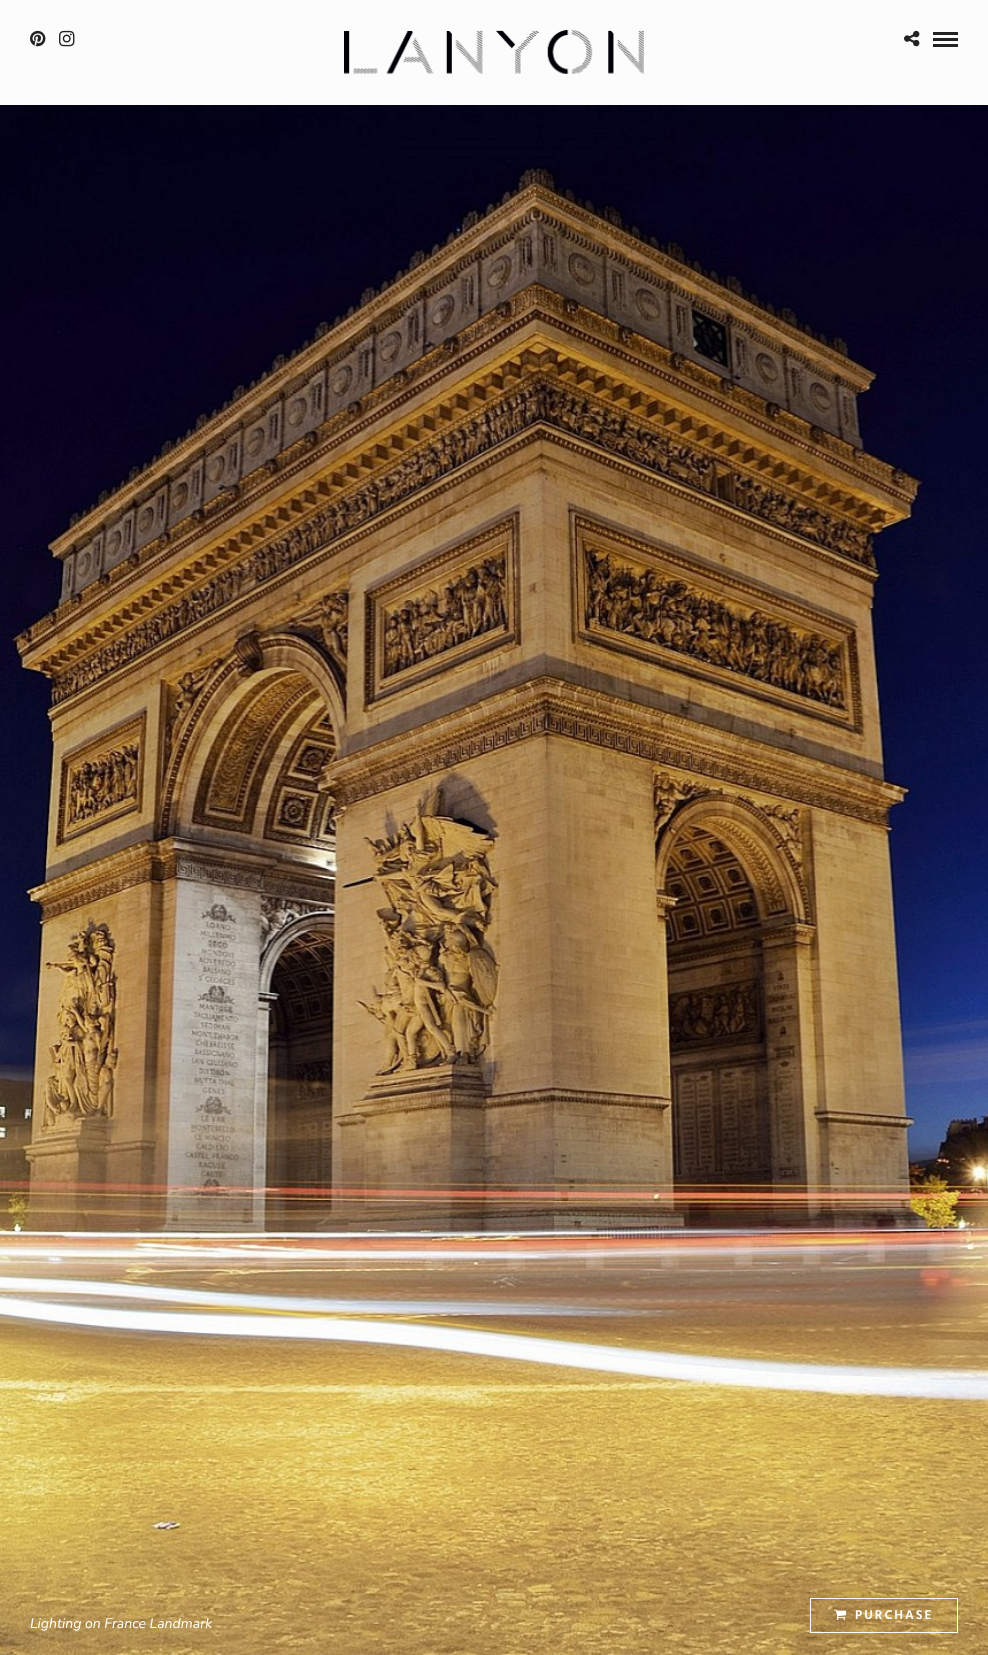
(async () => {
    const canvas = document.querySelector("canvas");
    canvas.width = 988;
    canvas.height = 1655;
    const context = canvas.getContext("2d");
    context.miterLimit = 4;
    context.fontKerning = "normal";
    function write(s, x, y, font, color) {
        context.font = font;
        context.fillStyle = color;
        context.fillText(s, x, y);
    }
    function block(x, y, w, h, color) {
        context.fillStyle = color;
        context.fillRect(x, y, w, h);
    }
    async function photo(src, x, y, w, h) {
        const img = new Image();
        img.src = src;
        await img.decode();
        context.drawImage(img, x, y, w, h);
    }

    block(0, 0, 988, 1655, "rgb(255, 255, 255)");
    await photo("media/1.png", 0, 105, 988, 1550);
    block(0, 0, 988, 105, "rgb(252, 252, 252)");
    await photo("media/2.png", 30, 30, 16, 17);
    await photo("media/3.png", 59, 30, 16, 17);
    await photo("media/4.png", 344, 30, 300, 44);
    await photo("media/5.png", 904, 30, 16, 17);
    block(933, 32, 25, 3, "rgb(34, 34, 34)");
    block(933, 38, 25, 3, "rgb(34, 34, 34)");
    block(933, 44, 25, 3, "rgb(34, 34, 34)");
    context.strokeStyle = "rgb(255, 255, 255)";
    context.strokeRect(810.5, 1598.5, 147, 34);
    await photo("media/6.png", 834, 1609, 13, 11);
    context.letterSpacing = "2px";
    write("PURCHASE", 855, 1619, "600 13px Hind", "rgb(255, 255, 255)");
    context.letterSpacing = "0px";
    write("Lighting on France Landmark", 30, 1628, "italic 200 14px Nunito", "rgb(255, 255, 255)");
})();
